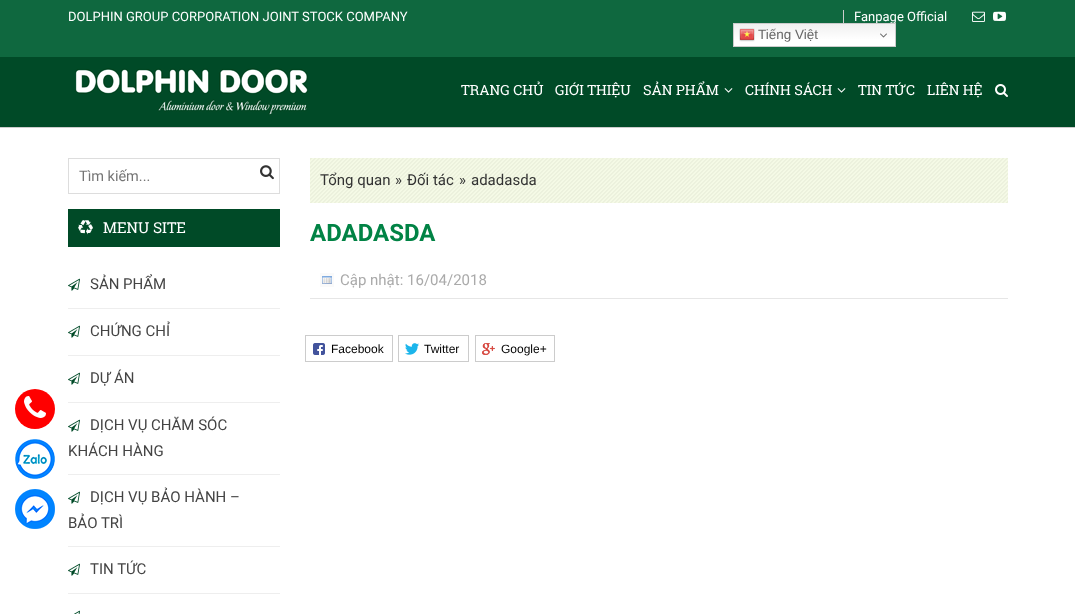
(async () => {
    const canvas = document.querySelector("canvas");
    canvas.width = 1075;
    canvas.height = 614;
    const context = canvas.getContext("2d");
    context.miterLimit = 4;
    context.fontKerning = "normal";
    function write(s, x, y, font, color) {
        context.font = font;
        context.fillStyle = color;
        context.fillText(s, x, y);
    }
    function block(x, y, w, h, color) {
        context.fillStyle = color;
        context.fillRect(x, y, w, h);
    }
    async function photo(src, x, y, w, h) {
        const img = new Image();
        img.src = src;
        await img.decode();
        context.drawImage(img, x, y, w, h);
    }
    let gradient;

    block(0, 0, 1075, 614, "rgb(255, 255, 255)");
    context.fillStyle = "rgb(255, 0, 0)";
    context.beginPath();
    context.arc(35, 409, 20, 0, Math.PI * 2);
    context.fill();
    await photo("media/1.png", 24, 396, 22, 22);
    await photo("media/2.png", 15, 439, 40, 40);
    await photo("media/3.png", 15, 489, 40, 40);
    block(0, 0, 1075, 57, "rgb(15, 104, 63)");
    write("DOLPHIN GROUP CORPORATION JOINT STOCK COMPANY", 68, 21, "13px Roboto", "rgb(255, 255, 255)");
    block(843, 10, 1, 13, "rgb(204, 204, 204)");
    write("Fanpage Official", 854, 21, "13px Roboto", "rgb(255, 255, 255)");
    await photo("media/4.png", 972, 11, 13, 11);
    await photo("media/5.png", 993, 11, 13, 10);
    gradient = context.createLinearGradient(815, 23, 815, 47);
    gradient.addColorStop(0, "rgb(239, 239, 239)");
    gradient.addColorStop(0.7, "rgb(255, 255, 255)");
    context.fillStyle = gradient;
    context.fillRect(734, 24, 161, 22);
    context.strokeStyle = "rgb(204, 204, 204)";
    context.strokeRect(733.5, 23.5, 162, 23);
    await photo("media/6.png", 739, 28, 16, 14);
    write("Tiếng Việt", 758, 39, "13.5px Liberation Sans", "rgb(102, 102, 102)");
    await photo("media/7.png", 880, 33, 7, 5);
    block(0, 57, 1075, 70, "rgb(0, 74, 39)");
    block(0, 127, 1075, 1, "rgb(204, 204, 204)");
    await photo("media/8.png", 75, 68, 233, 47);
    write("TRANG CHỦ", 461, 95, "14px Roboto Slab", "rgb(255, 255, 255)");
    write("GIỚI THIỆU", 555, 95, "14px Roboto Slab", "rgb(255, 255, 255)");
    write("SẢN PHẨM", 643, 95, "14px Roboto Slab", "rgb(255, 255, 255)");
    await photo("media/9.png", 724, 88, 9, 5);
    write("CHÍNH SÁCH", 745, 95, "14px Roboto Slab", "rgb(255, 255, 255)");
    await photo("media/9.png", 837, 88, 9, 5);
    write("TIN TỨC", 858, 95, "14px Roboto Slab", "rgb(255, 255, 255)");
    write("LIÊN HỆ", 927, 95, "14px Roboto Slab", "rgb(255, 255, 255)");
    await photo("media/10.png", 995, 84, 13, 13);
    context.strokeStyle = "rgb(221, 221, 221)";
    context.strokeRect(68.5, 158.5, 211, 35);
    write("Tìm kiếm...", 79, 181, "14.5px Roboto", "rgb(117, 117, 117)");
    await photo("media/11.png", 260, 165, 14, 15);
    block(68, 209, 212, 38, "rgb(0, 74, 39)");
    await photo("media/12.png", 78, 220, 15, 15);
    write("MENU SITE", 103, 233, "15px Roboto Slab", "rgb(255, 255, 255)");
    block(68, 308, 212, 1, "rgb(238, 238, 238)");
    await photo("media/13.png", 68, 278, 12, 13);
    write("SẢN PHẨM", 90, 289, "15px Roboto", "rgb(68, 68, 68)");
    block(68, 355, 212, 1, "rgb(238, 238, 238)");
    await photo("media/13.png", 68, 325, 12, 13);
    write("CHỨNG CHỈ", 90, 336, "15px Roboto", "rgb(68, 68, 68)");
    block(68, 402, 212, 1, "rgb(238, 238, 238)");
    await photo("media/13.png", 68, 372, 12, 13);
    write("DỰ ÁN", 90, 383, "15px Roboto", "rgb(68, 68, 68)");
    block(68, 474, 212, 1, "rgb(238, 238, 238)");
    await photo("media/13.png", 68, 419, 12, 13);
    write("DỊCH VỤ CHĂM SÓC", 90, 430, "15px Roboto", "rgb(68, 68, 68)");
    write("KHÁCH HÀNG", 68, 456, "15px Roboto", "rgb(68, 68, 68)");
    block(68, 546, 212, 1, "rgb(238, 238, 238)");
    await photo("media/13.png", 68, 491, 12, 13);
    write("DỊCH VỤ BẢO HÀNH –", 90, 502, "15px Roboto", "rgb(68, 68, 68)");
    write("BẢO TRÌ", 68, 528, "15px Roboto", "rgb(68, 68, 68)");
    block(68, 593, 212, 1, "rgb(238, 238, 238)");
    await photo("media/13.png", 68, 563, 12, 13);
    write("TIN TỨC", 90, 574, "15px Roboto", "rgb(68, 68, 68)");
    await photo("media/14.png", 74, 610, 6, 4);
    await photo("media/15.png", 310, 158, 698, 45);
    write("Tổng quan", 320, 185, "15px 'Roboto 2'", "rgb(51, 51, 51)");
    write("»", 395, 185, "15px Roboto", "rgb(51, 51, 51)");
    write("Đối tác", 407, 185, "15px 'Roboto 2'", "rgb(51, 51, 51)");
    write("»", 459, 185, "15px Roboto", "rgb(51, 51, 51)");
    write("adadasda", 471, 185, "15px 'Roboto 2'", "rgb(51, 51, 51)");
    write("ADADASDA", 310, 241, "bold 24px Roboto", "rgb(1, 131, 69)");
    block(310, 298, 698, 1, "rgb(230, 230, 230)");
    await photo("media/16.png", 320, 273, 14, 14);
    write("Cập nhật: 16/04/2018", 340, 285, "15px Roboto", "rgb(170, 170, 170)");
    context.strokeStyle = "rgb(204, 204, 204)";
    context.strokeRect(305.5, 335.5, 87, 26);
    await photo("media/17.png", 313, 343, 12, 12);
    write("Facebook", 331, 353, "12px Liberation Sans", "rgb(0, 0, 0)");
    context.strokeRect(398.5, 335.5, 70, 26);
    await photo("media/18.png", 405, 343, 14, 12);
    write("Twitter", 424, 353, "12px Liberation Sans", "rgb(0, 0, 0)");
    context.strokeRect(475.5, 335.5, 79, 26);
    await photo("media/19.png", 482, 343, 13, 12);
    write("Google+", 501, 353, "12px Liberation Sans", "rgb(0, 0, 0)");
})();
